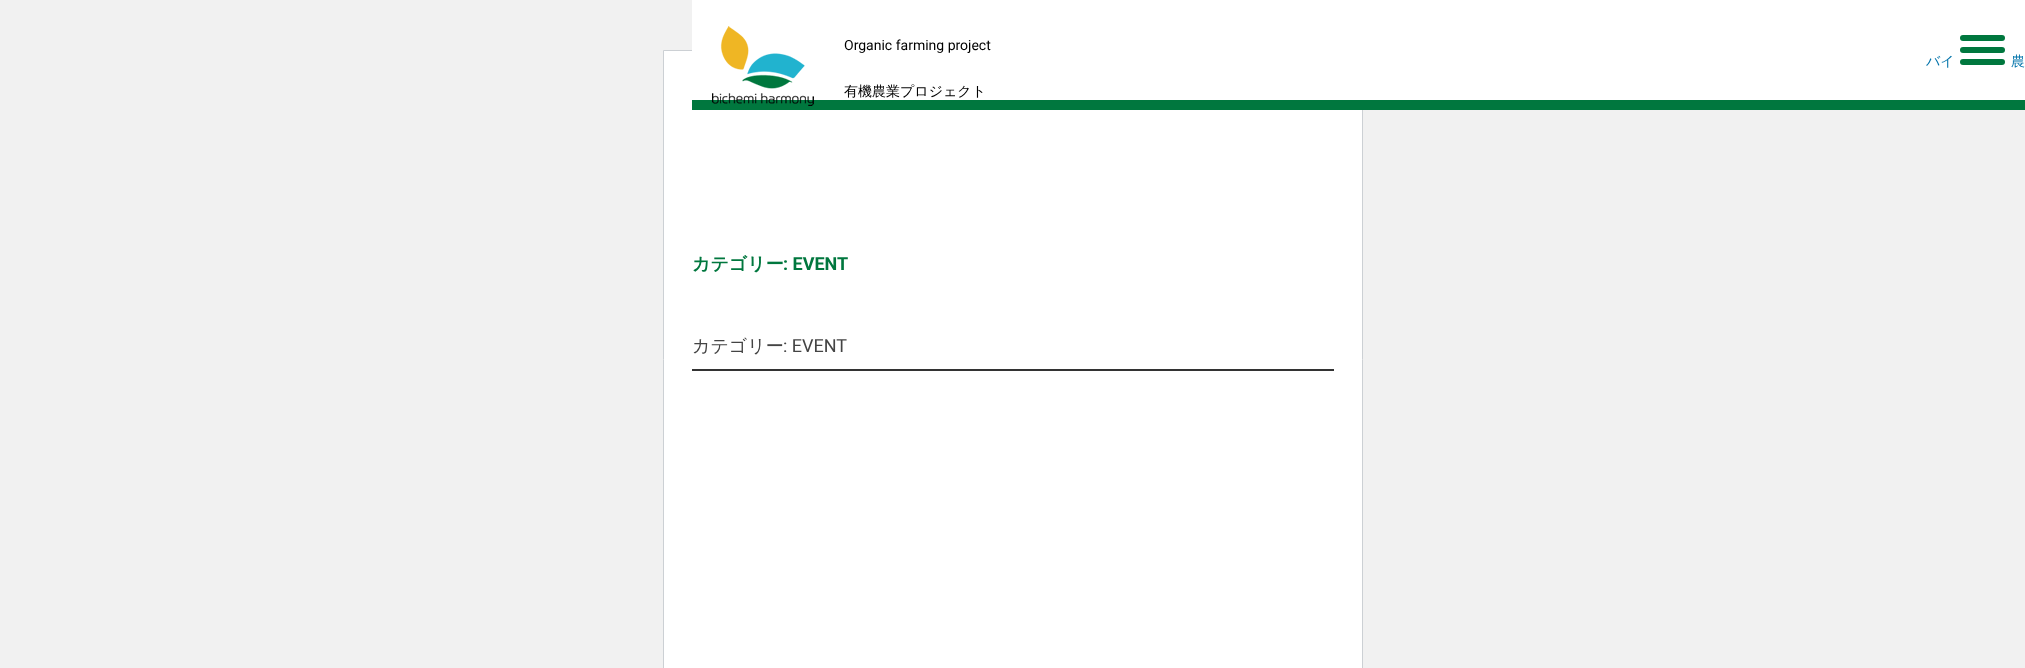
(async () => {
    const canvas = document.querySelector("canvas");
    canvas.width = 2025;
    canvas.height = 668;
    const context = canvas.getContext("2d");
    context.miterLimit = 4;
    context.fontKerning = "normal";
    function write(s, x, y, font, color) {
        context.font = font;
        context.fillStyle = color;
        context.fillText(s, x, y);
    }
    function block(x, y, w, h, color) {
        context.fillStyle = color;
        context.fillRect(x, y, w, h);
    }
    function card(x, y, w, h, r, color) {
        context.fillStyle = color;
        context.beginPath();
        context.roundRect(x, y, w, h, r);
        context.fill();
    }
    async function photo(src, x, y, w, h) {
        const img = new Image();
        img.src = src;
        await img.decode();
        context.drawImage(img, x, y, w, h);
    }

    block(0, 0, 2025, 668, "rgb(241, 241, 241)");
    context.fillStyle = "rgb(255, 255, 255)";
    context.beginPath();
    context.rect(663.5, 50.5, 699, 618);
    context.fill();
    context.strokeStyle = "rgb(204, 208, 212)";
    context.stroke();
    block(692, 0, 1333, 100, "rgb(255, 255, 255)");
    block(692, 100, 1333, 10, "rgb(0, 119, 62)");
    await photo("media/1.png", 712, 26, 102, 80);
    write("Organic farming project", 844, 50, "14px Roboto", "rgb(0, 0, 0)");
    write("有機農業プロジェクト", 844, 96, "500 14px WenQuanYi Zen Hei", "rgb(0, 0, 0)");
    card(1960, 35, 45, 6, 3, "rgb(0, 119, 62)");
    card(1960, 47, 45, 6, 3, "rgb(0, 119, 62)");
    card(1960, 59, 45, 6, 3, "rgb(0, 119, 62)");
    write("バイ", 1926, 66, "500 14px WenQuanYi Zen Hei", "rgb(0, 115, 170)");
    write("農", 2011, 66, "500 14px WenQuanYi Zen Hei", "rgb(0, 115, 170)");
    write("カテゴリー", 692, 270, "bold 18px WenQuanYi Zen Hei", "rgb(0, 119, 62)");
    write(": EVENT", 783, 270, "bold 18px Roboto", "rgb(0, 119, 62)");
    block(692, 369, 642, 2, "rgb(51, 51, 51)");
    write("カテゴリー", 692, 352, "500 18px WenQuanYi Zen Hei", "rgb(68, 68, 68)");
    write(": EVENT", 783, 352, "18px Roboto", "rgb(68, 68, 68)");
})();
